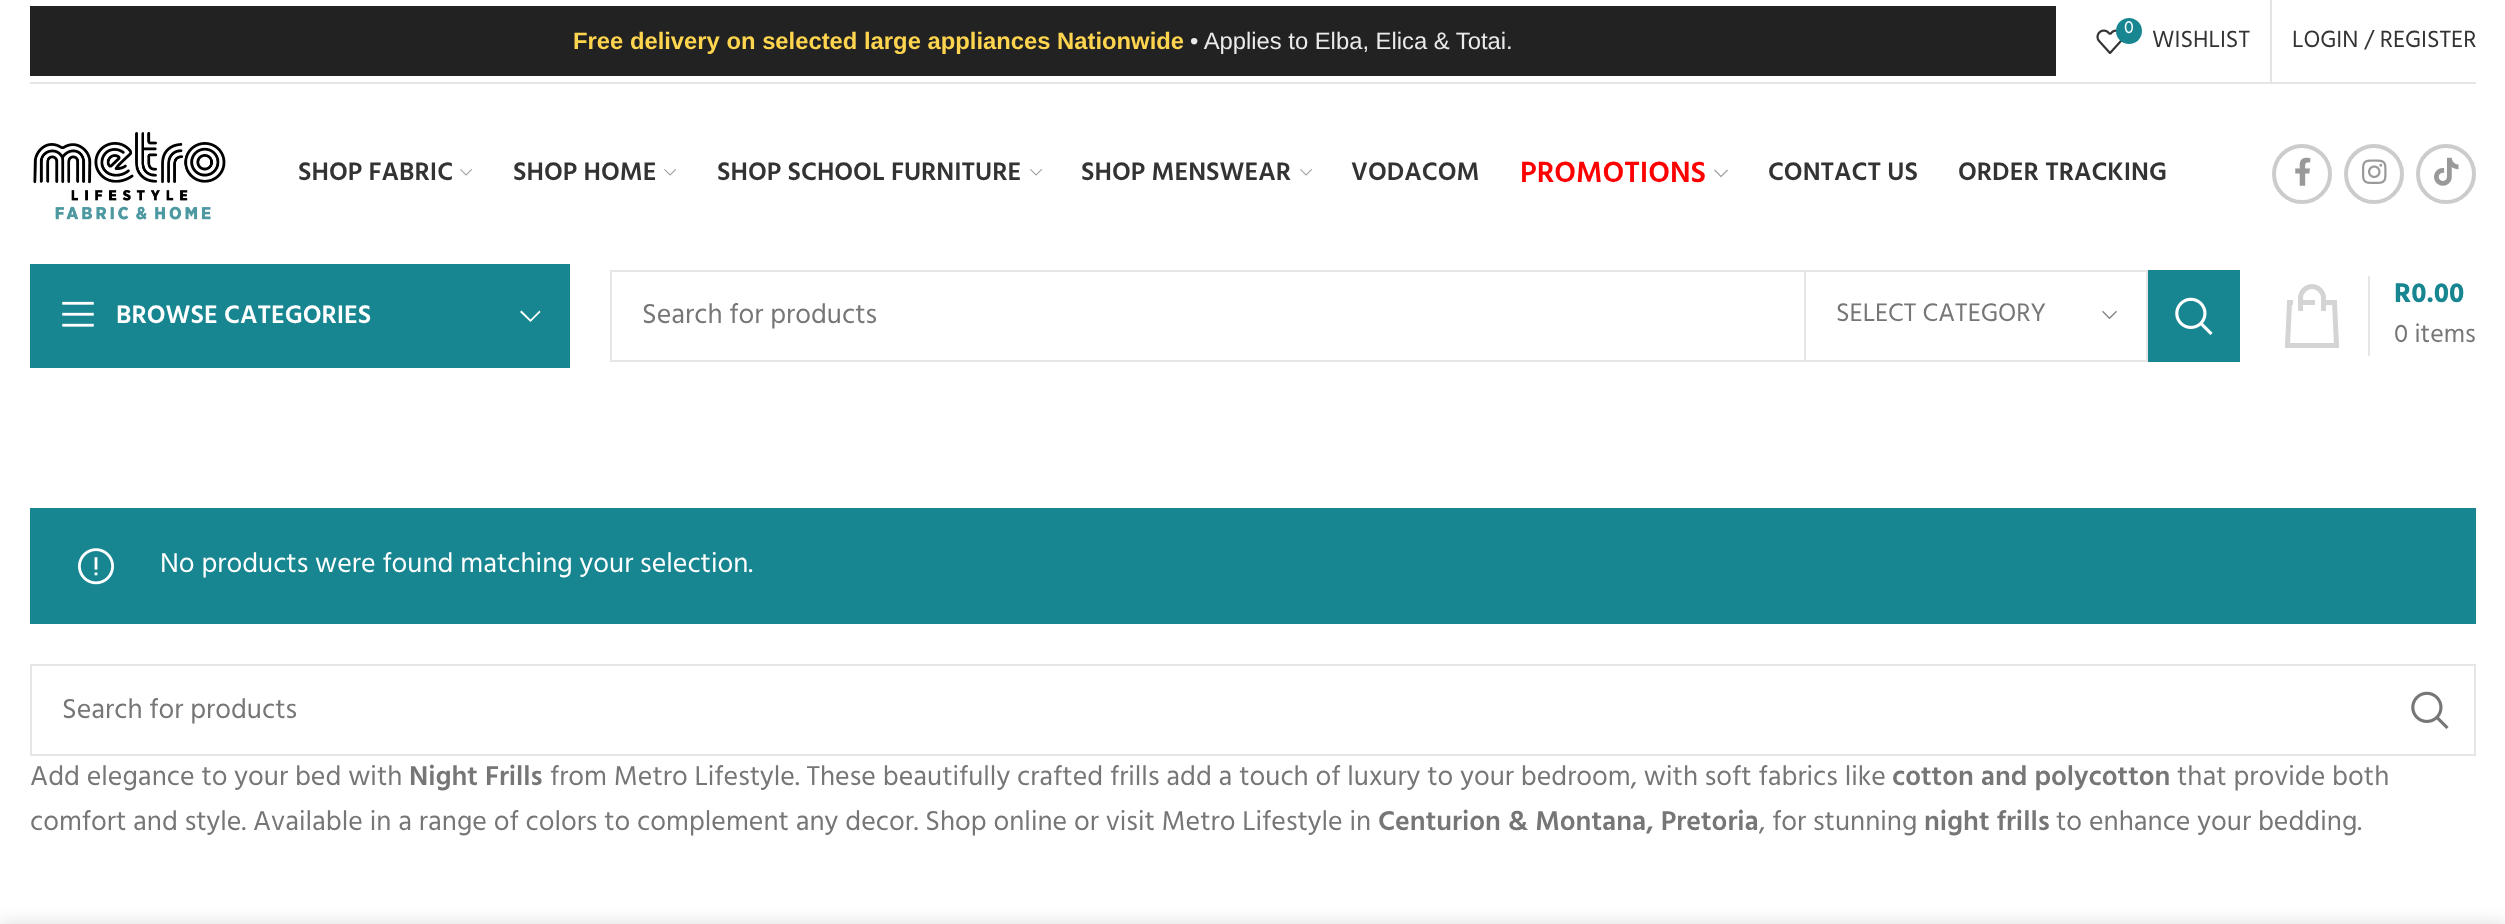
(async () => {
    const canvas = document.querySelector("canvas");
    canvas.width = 2505;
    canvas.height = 924;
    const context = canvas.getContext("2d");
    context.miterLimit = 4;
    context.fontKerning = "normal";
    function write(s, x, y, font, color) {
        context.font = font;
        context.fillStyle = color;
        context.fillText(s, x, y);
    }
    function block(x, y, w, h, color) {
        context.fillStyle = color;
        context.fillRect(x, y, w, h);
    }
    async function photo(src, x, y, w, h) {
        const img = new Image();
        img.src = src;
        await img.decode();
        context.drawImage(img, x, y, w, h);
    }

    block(0, 0, 2505, 924, "rgb(255, 255, 255)");
    block(30, 82, 2446, 2, "rgb(230, 230, 230)");
    block(30, 6, 2026, 70, "rgb(34, 34, 34)");
    write("Free delivery on selected large appliances Nationwide", 573, 49, "bold 23.8px Liberation Sans", "rgb(255, 213, 79)");
    write("• Applies to Elba, Elica & Totai.", 1190, 49, "23.8px Liberation Sans", "rgb(234, 234, 234)");
    await photo("media/1.png", 2096, 29, 26, 25);
    context.fillStyle = "rgb(23, 134, 145)";
    context.beginPath();
    context.arc(2129, 31, 13, 0, Math.PI * 2);
    context.fill();
    write("0", 2124, 33, "18px Hind", "rgb(255, 255, 255)");
    write("WISHLIST", 2152, 47, "24px Hind", "rgb(51, 51, 51)");
    block(2270, 0, 2, 82, "rgb(228, 228, 228)");
    write("LOGIN / REGISTER", 2292, 47, "24px Hind", "rgb(51, 51, 51)");
    await photo("media/2.png", 33, 131, 193, 89);
    write("SHOP FABRIC", 298, 180, "600 26px Hind", "rgb(51, 51, 51)");
    await photo("media/3.png", 460, 169, 12, 7);
    write("SHOP HOME", 513, 180, "600 26px Hind", "rgb(51, 51, 51)");
    await photo("media/3.png", 664, 169, 12, 7);
    write("SHOP SCHOOL FURNITURE", 717, 180, "600 26px Hind", "rgb(51, 51, 51)");
    await photo("media/3.png", 1030, 169, 12, 7);
    write("SHOP MENSWEAR", 1081, 180, "600 26px Hind", "rgb(51, 51, 51)");
    await photo("media/3.png", 1300, 169, 12, 7);
    write("VODACOM", 1351, 180, "600 26px Hind", "rgb(51, 51, 51)");
    write("PROMOTIONS", 1520, 182, "600 30px Hind", "rgb(255, 0, 0)");
    await photo("media/4.png", 1714, 169, 14, 9);
    write("CONTACT US", 1768, 180, "600 26px Hind", "rgb(51, 51, 51)");
    write("ORDER TRACKING", 1958, 180, "600 26px Hind", "rgb(51, 51, 51)");
    context.beginPath();
    context.arc(2302, 174, 28, 0, Math.PI * 2);
    context.strokeStyle = "rgb(204, 204, 204)";
    context.lineWidth = 4;
    context.stroke();
    await photo("media/5.png", 2295, 157, 16, 29);
    context.beginPath();
    context.arc(2374, 174, 28, 0, Math.PI * 2);
    context.stroke();
    await photo("media/6.png", 2362, 159, 25, 25);
    context.beginPath();
    context.arc(2446, 174, 28, 0, Math.PI * 2);
    context.stroke();
    await photo("media/7.png", 2434, 157, 25, 29);
    block(30, 264, 540, 104, "rgb(23, 134, 145)");
    await photo("media/8.png", 62, 301, 32, 26);
    write("BROWSE CATEGORIES", 116, 323, "600 26px Hind", "rgb(255, 255, 255)");
    context.beginPath();
    context.moveTo(539.5, 310.5);
    context.lineTo(530.5, 319.5);
    context.lineTo(521.5, 310.5);
    context.lineTo(520, 312);
    context.lineTo(530.5, 322);
    context.lineTo(540.5, 312);
    context.closePath();
    context.fill();
    context.strokeStyle = "rgb(230, 230, 230)";
    context.lineWidth = 2;
    context.strokeRect(611, 271, 1628, 90);
    write("Search for products", 642, 323, "28px Hind", "rgb(118, 118, 118)");
    block(2146, 272, 2, 88, "rgb(230, 230, 230)");
    block(1804, 272, 2, 88, "rgb(230, 230, 230)");
    write("SELECT CATEGORY", 1836, 321, "26px Hind", "rgb(118, 118, 118)");
    await photo("media/9.png", 2102, 311, 15, 8);
    block(2148, 270, 92, 92, "rgb(23, 134, 145)");
    await photo("media/10.png", 2175, 297, 38, 38);
    await photo("media/11.png", 2285, 284, 54, 64);
    block(2368, 276, 2, 80, "rgb(230, 230, 230)");
    write("R0.00", 2394, 302, "bold 28px Hind", "rgb(23, 134, 145)");
    write("0 items", 2394, 342, "26px Hind", "rgb(118, 118, 118)");
    block(30, 508, 2446, 116, "rgb(23, 134, 145)");
    await photo("media/12.png", 78, 548, 36, 37);
    write("No products were found matching your selection.", 160, 572, "28px Hind", "rgb(255, 255, 255)");
    context.strokeRect(31, 665, 2444, 90);
    write("Search for products", 62, 718, "28px Hind", "rgb(118, 118, 118)");
    await photo("media/13.png", 2411, 691, 38, 38);
    write("Add elegance to your bed with", 30, 785, "28px Hind", "rgb(118, 118, 118)");
    write("Night Frills", 409, 785, "600 28px Hind", "rgb(118, 118, 118)");
    write("from Metro Lifestyle. These beautifully crafted frills add a touch of luxury to your bedroom, with soft fabrics like", 550, 785, "28px Hind", "rgb(118, 118, 118)");
    write("cotton and polycotton", 1892, 785, "600 28px Hind", "rgb(118, 118, 118)");
    write("that provide both", 2177, 785, "28px Hind", "rgb(118, 118, 118)");
    write("comfort and style. Available in a range of colors to complement any decor. Shop online or visit Metro Lifestyle in", 30, 830, "28px Hind", "rgb(118, 118, 118)");
    write("Centurion & Montana, Pretoria", 1378, 830, "600 28px Hind", "rgb(118, 118, 118)");
    write(", for stunning", 1759, 830, "28px Hind", "rgb(118, 118, 118)");
    write("night frills", 1924, 830, "600 28px Hind", "rgb(118, 118, 118)");
    write("to enhance your bedding.", 2056, 830, "28px Hind", "rgb(118, 118, 118)");
    context.fillStyle = "rgba(0, 0, 0, 0.14)";
    context.filter = "blur(9px)";
    context.beginPath();
    context.rect(0, 924, 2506, 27);
    context.fill();
    context.filter = "none";
})();
